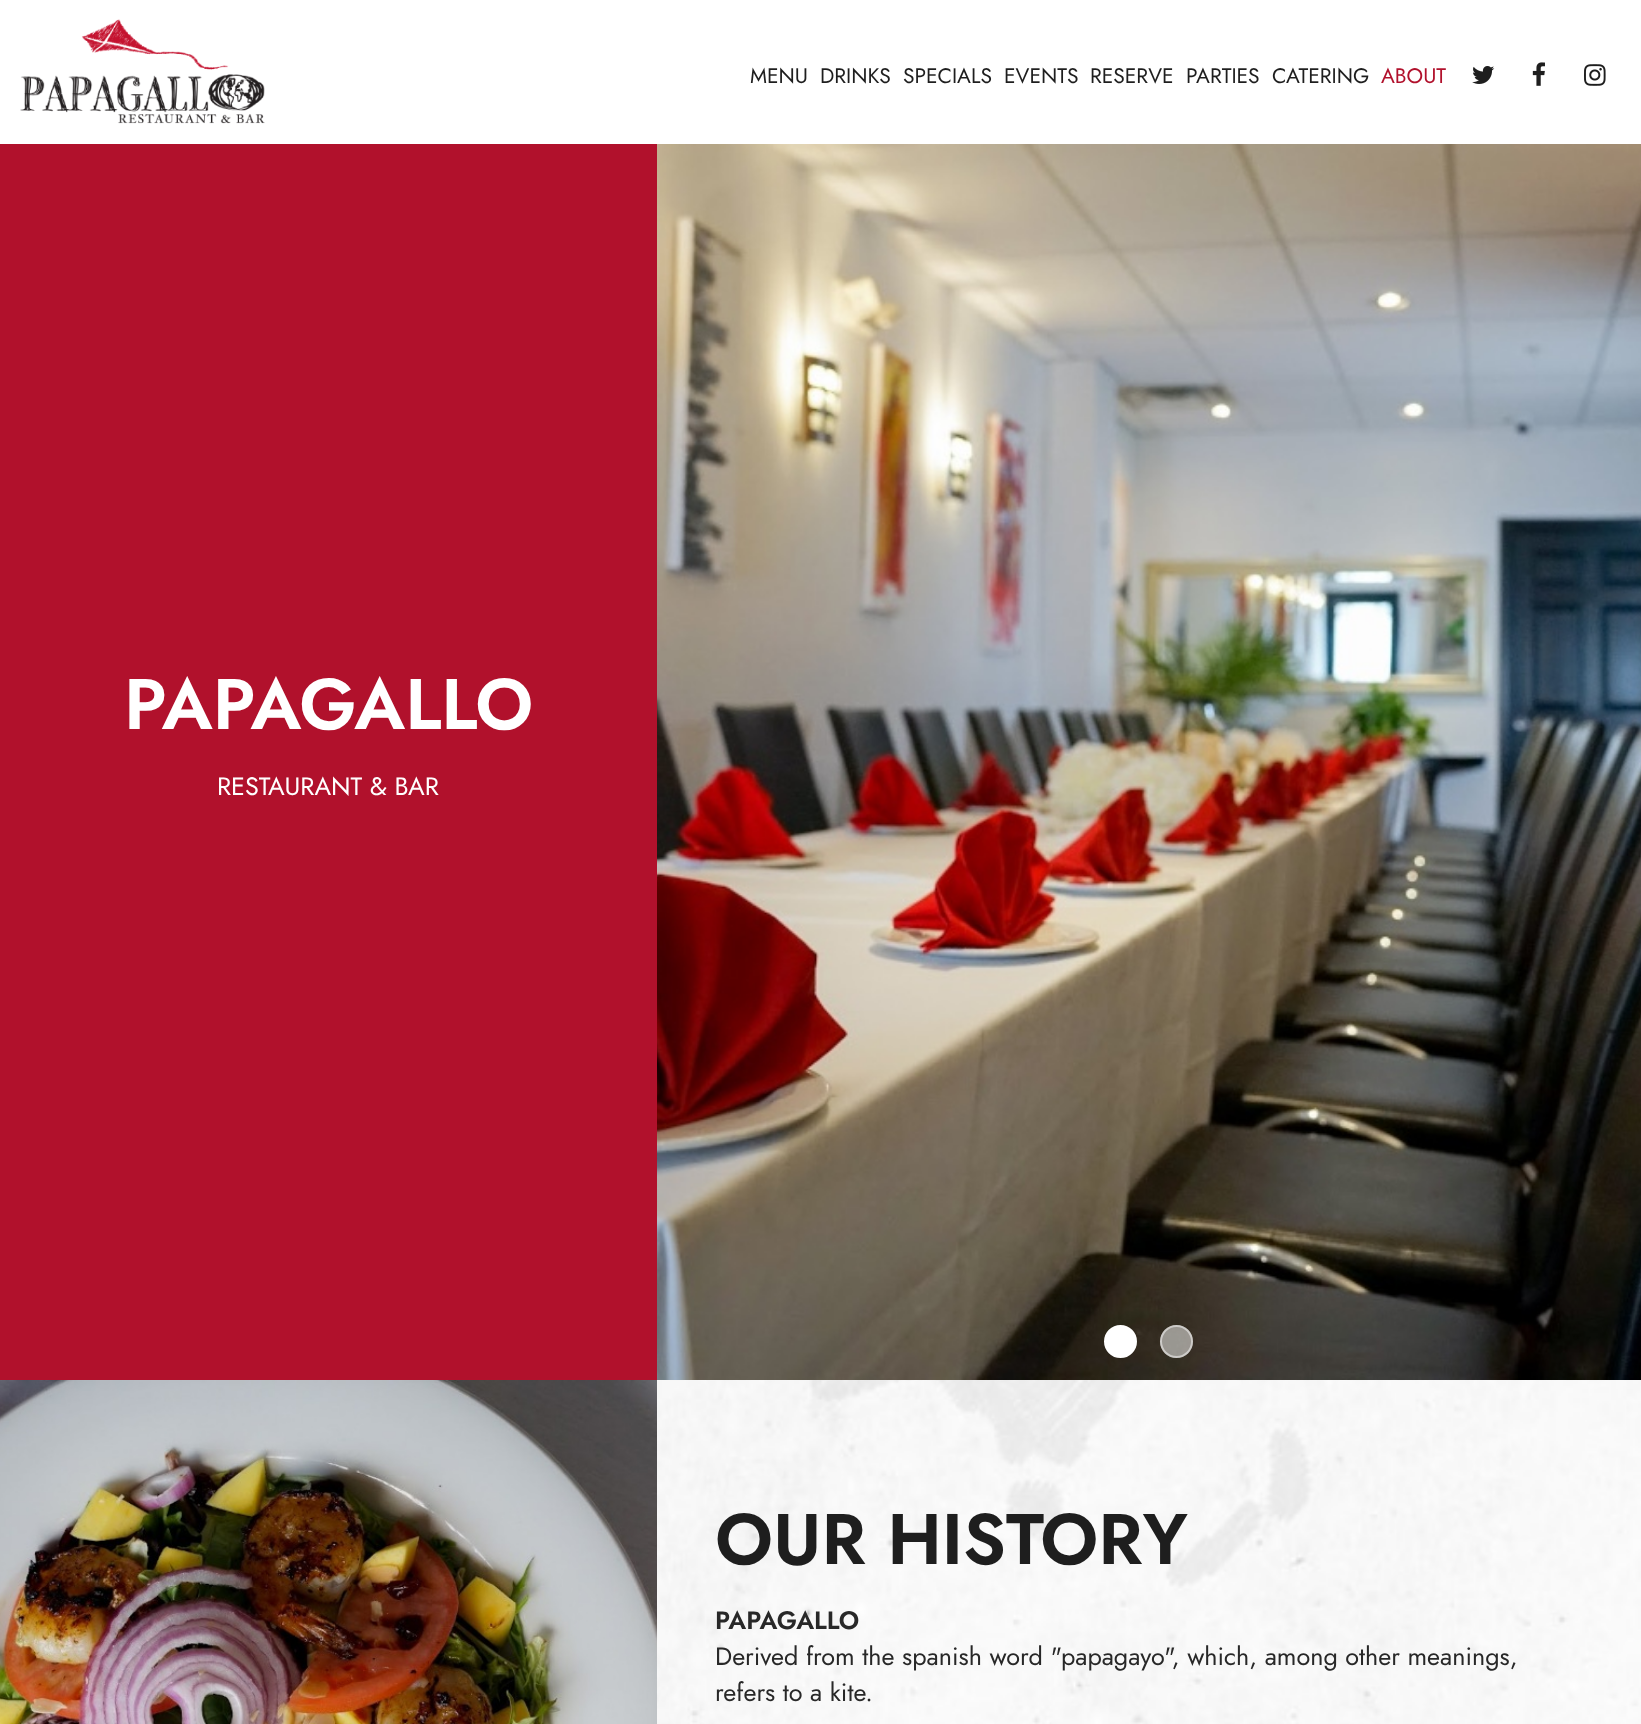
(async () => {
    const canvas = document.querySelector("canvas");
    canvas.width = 1641;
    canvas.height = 1724;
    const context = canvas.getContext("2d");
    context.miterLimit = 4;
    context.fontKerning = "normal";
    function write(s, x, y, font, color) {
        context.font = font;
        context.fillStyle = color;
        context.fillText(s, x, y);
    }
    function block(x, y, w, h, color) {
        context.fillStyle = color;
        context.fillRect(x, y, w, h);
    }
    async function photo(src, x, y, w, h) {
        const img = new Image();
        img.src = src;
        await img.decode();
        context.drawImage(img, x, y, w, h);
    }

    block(0, 0, 1641, 1724, "rgb(177, 17, 44)");
    block(0, 0, 1641, 144, "rgb(255, 255, 255)");
    await photo("media/1.png", 20, 19, 245, 105);
    write("MENU", 750, 83, "21px Jost", "rgb(30, 30, 30)");
    write("DRINKS", 820, 83, "21px Jost", "rgb(30, 30, 30)");
    write("SPECIALS", 903, 83, "21px Jost", "rgb(30, 30, 30)");
    write("EVENTS", 1004, 83, "21px Jost", "rgb(30, 30, 30)");
    write("RESERVE", 1090, 83, "21px Jost", "rgb(30, 30, 30)");
    write("PARTIES", 1186, 83, "21px Jost", "rgb(30, 30, 30)");
    write("CATERING", 1272, 83, "21px Jost", "rgb(30, 30, 30)");
    write("ABOUT", 1381, 83, "21px Jost", "rgb(177, 17, 44)");
    await photo("media/2.png", 1472, 66, 23, 18);
    await photo("media/3.png", 1532, 62, 13, 24);
    await photo("media/4.png", 1584, 64, 22, 22);
    write("PAPAGALLO", 124, 729, "600 71.5px Jost", "rgb(255, 255, 255)");
    write("RESTAURANT & BAR", 217, 795, "25.2px Jost", "rgb(255, 255, 255)");
    await photo("media/5.png", 657, 144, 984, 1236);
    context.beginPath();
    context.arc(1120.5, 1341.5, 15.5, 0, Math.PI * 2);
    context.fill();
    context.strokeStyle = "rgb(255, 255, 255)";
    context.lineWidth = 2;
    context.stroke();
    context.fillStyle = "rgba(255, 255, 255, 0.5)";
    context.beginPath();
    context.arc(1176.5, 1341.5, 16.5, 0, Math.PI * 2);
    context.fill();
    context.beginPath();
    context.arc(1176.5, 1341.5, 15.5, 0, Math.PI * 2);
    context.strokeStyle = "rgba(255, 255, 255, 0.5)";
    context.stroke();
    await photo("media/6.png", 0, 1380, 657, 344);
    await photo("media/7.png", 657, 1380, 984, 344);
    write("OUR HISTORY", 715, 1564, "600 71.5px Jost", "rgb(30, 30, 30)");
    write("PAPAGALLO", 715, 1629, "600 25.2px Jost", "rgb(40, 40, 40)");
    write("Derived from the spanish word \"papagayo\", which, among other meanings,", 715, 1665, "25.2px Jost", "rgb(40, 40, 40)");
    write("refers to a kite.", 715, 1701, "25.2px Jost", "rgb(40, 40, 40)");
})();
